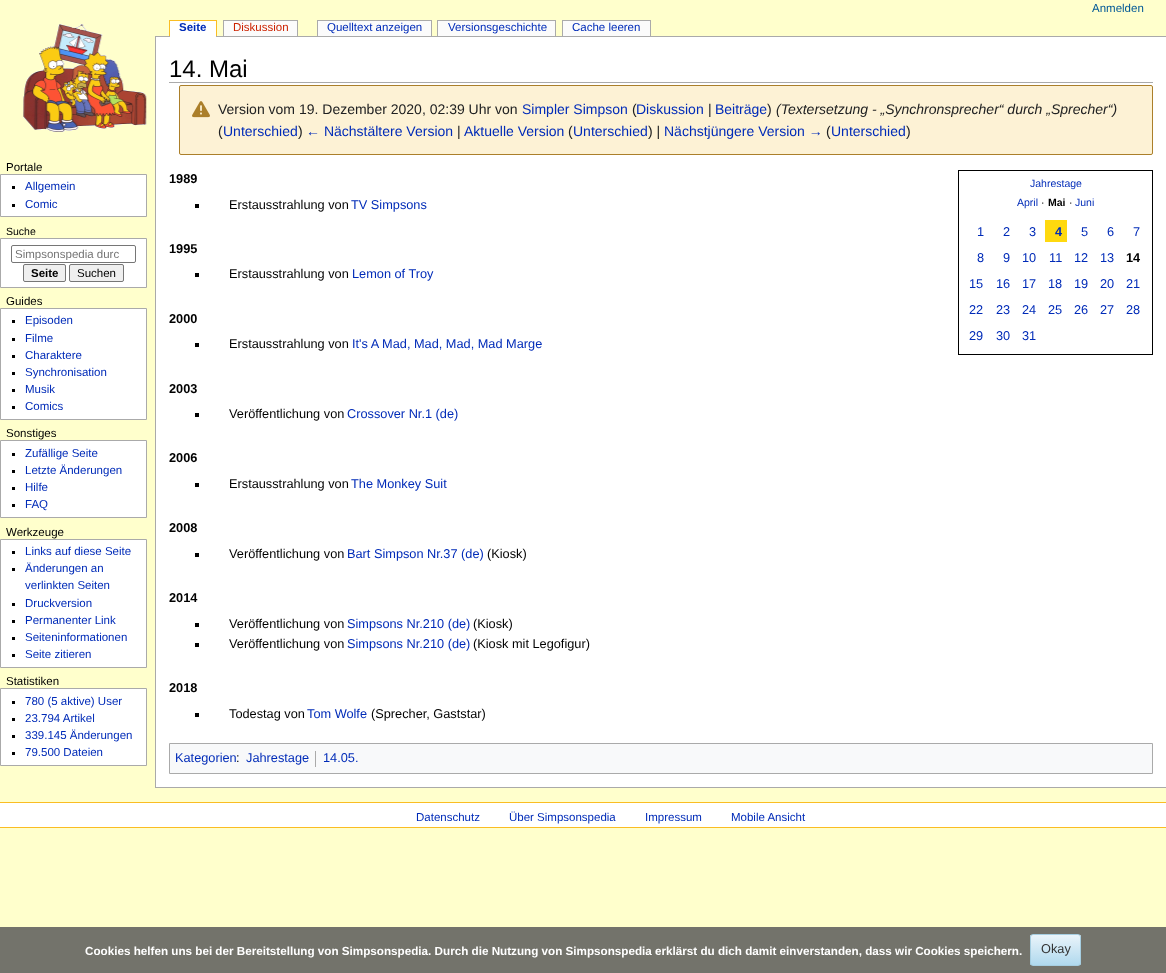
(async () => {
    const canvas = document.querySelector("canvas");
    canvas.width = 1166;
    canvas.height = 973;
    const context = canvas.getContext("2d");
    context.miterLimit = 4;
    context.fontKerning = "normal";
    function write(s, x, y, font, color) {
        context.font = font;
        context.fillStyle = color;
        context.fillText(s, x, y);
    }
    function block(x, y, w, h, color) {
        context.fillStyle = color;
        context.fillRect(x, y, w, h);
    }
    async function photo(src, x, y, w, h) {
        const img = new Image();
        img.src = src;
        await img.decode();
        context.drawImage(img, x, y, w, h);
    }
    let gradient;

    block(0, 0, 1166, 973, "rgb(255, 255, 204)");
    write("Anmelden", 1092, 12, "11.5px Liberation Sans", "rgb(0, 88, 150)");
    await photo("media/1.png", 23, 24, 124, 108);
    block(155, 36, 1011, 1, "rgb(170, 170, 170)");
    block(170, 21, 46, 16, "rgb(255, 255, 255)");
    write("Seite", 179, 31, "bold 11.5px Liberation Sans", "rgb(0, 43, 184)");
    block(169, 20, 48, 1, "rgb(250, 189, 35)");
    block(216, 20, 1, 16, "rgb(250, 189, 35)");
    block(169, 20, 1, 16, "rgb(250, 189, 35)");
    block(224, 21, 73, 15, "rgb(251, 251, 251)");
    write("Diskussion", 233, 31, "11.5px Liberation Sans", "rgb(204, 34, 0)");
    block(223, 20, 75, 1, "rgb(170, 170, 170)");
    block(297, 20, 1, 16, "rgb(170, 170, 170)");
    block(223, 20, 1, 16, "rgb(170, 170, 170)");
    block(318, 21, 113, 15, "rgb(251, 251, 251)");
    write("Quelltext anzeigen", 327, 31, "11.5px Liberation Sans", "rgb(0, 43, 184)");
    block(317, 20, 115, 1, "rgb(170, 170, 170)");
    block(431, 20, 1, 16, "rgb(170, 170, 170)");
    block(317, 20, 1, 16, "rgb(170, 170, 170)");
    block(438, 21, 117, 15, "rgb(251, 251, 251)");
    write("Versionsgeschichte", 448, 31, "11.5px Liberation Sans", "rgb(0, 43, 184)");
    block(437, 20, 119, 1, "rgb(170, 170, 170)");
    block(555, 20, 1, 16, "rgb(170, 170, 170)");
    block(437, 20, 1, 16, "rgb(170, 170, 170)");
    block(563, 21, 87, 15, "rgb(251, 251, 251)");
    write("Cache leeren", 572, 31, "11.5px Liberation Sans", "rgb(0, 43, 184)");
    block(562, 20, 89, 1, "rgb(170, 170, 170)");
    block(650, 20, 1, 16, "rgb(170, 170, 170)");
    block(562, 20, 1, 16, "rgb(170, 170, 170)");
    write("Portale", 6, 171, "11.5px Liberation Sans", "rgb(0, 0, 0)");
    context.fillStyle = "rgb(255, 255, 255)";
    context.beginPath();
    context.rect(0.5, 174.5, 146, 42);
    context.fill();
    context.strokeStyle = "rgb(170, 170, 170)";
    context.stroke();
    block(12, 186, 3, 3, "rgb(0, 0, 0)");
    write("Allgemein", 25, 190, "11.5px Liberation Sans", "rgb(0, 43, 184)");
    block(12, 204, 3, 3, "rgb(0, 0, 0)");
    write("Comic", 25, 208, "11.5px Liberation Sans", "rgb(0, 43, 184)");
    write("Suche", 6, 235, "10.5px Liberation Sans", "rgb(0, 0, 0)");
    context.fillStyle = "rgb(255, 255, 255)";
    context.beginPath();
    context.rect(0.5, 238.5, 146, 49);
    context.fill();
    context.stroke();
    context.beginPath();
    context.roundRect(11.5, 245.5, 124, 17, 1.5);
    context.strokeStyle = "rgb(118, 118, 118)";
    context.stroke();
    context.save();
    context.beginPath();
    context.rect(15, 248, 105, 12);
    context.clip();
    write("Simpsonspedia durc", 15, 258, "11.5px Liberation Sans", "rgb(117, 117, 117)");
    context.restore();
    context.fillStyle = "rgb(239, 239, 239)";
    context.beginPath();
    context.roundRect(23.5, 264.5, 42, 17, 1.5);
    context.fill();
    context.stroke();
    write("Seite", 31, 277, "bold 11.5px Liberation Sans", "rgb(0, 0, 0)");
    context.fillStyle = "rgb(239, 239, 239)";
    context.beginPath();
    context.roundRect(69.5, 264.5, 54, 17, 1.5);
    context.fill();
    context.stroke();
    write("Suchen", 77, 277, "11.5px Liberation Sans", "rgb(0, 0, 0)");
    write("Guides", 6, 305, "11.5px Liberation Sans", "rgb(0, 0, 0)");
    context.fillStyle = "rgb(255, 255, 255)";
    context.beginPath();
    context.rect(0.5, 308.5, 146, 111);
    context.fill();
    context.strokeStyle = "rgb(170, 170, 170)";
    context.stroke();
    block(12, 320, 3, 3, "rgb(0, 0, 0)");
    write("Episoden", 25, 324, "11.5px Liberation Sans", "rgb(0, 43, 184)");
    block(12, 338, 3, 3, "rgb(0, 0, 0)");
    write("Filme", 25, 342, "11.5px Liberation Sans", "rgb(0, 43, 184)");
    block(12, 355, 3, 3, "rgb(0, 0, 0)");
    write("Charaktere", 25, 359, "11.5px Liberation Sans", "rgb(0, 43, 184)");
    block(12, 372, 3, 3, "rgb(0, 0, 0)");
    write("Synchronisation", 25, 376, "11.5px Liberation Sans", "rgb(0, 43, 184)");
    block(12, 389, 3, 3, "rgb(0, 0, 0)");
    write("Musik", 25, 393, "11.5px Liberation Sans", "rgb(0, 43, 184)");
    block(12, 406, 3, 3, "rgb(0, 0, 0)");
    write("Comics", 25, 410, "11.5px Liberation Sans", "rgb(0, 43, 184)");
    write("Sonstiges", 6, 437, "11.5px Liberation Sans", "rgb(0, 0, 0)");
    context.fillStyle = "rgb(255, 255, 255)";
    context.beginPath();
    context.rect(0.5, 440.5, 146, 77);
    context.fill();
    context.stroke();
    block(12, 453, 3, 3, "rgb(0, 0, 0)");
    write("Zufällige Seite", 25, 457, "11.5px Liberation Sans", "rgb(0, 43, 184)");
    block(12, 470, 3, 3, "rgb(0, 0, 0)");
    write("Letzte Änderungen", 25, 474, "11.5px Liberation Sans", "rgb(0, 43, 184)");
    block(12, 487, 3, 3, "rgb(0, 0, 0)");
    write("Hilfe", 25, 491, "11.5px Liberation Sans", "rgb(0, 43, 184)");
    block(12, 504, 3, 3, "rgb(0, 0, 0)");
    write("FAQ", 25, 508, "11.5px Liberation Sans", "rgb(0, 43, 184)");
    write("Werkzeuge", 6, 536, "11.5px Liberation Sans", "rgb(0, 0, 0)");
    context.fillStyle = "rgb(255, 255, 255)";
    context.beginPath();
    context.rect(0.5, 539.5, 146, 128);
    context.fill();
    context.stroke();
    block(12, 551, 3, 3, "rgb(0, 0, 0)");
    write("Links auf diese Seite", 25, 555, "11.5px Liberation Sans", "rgb(0, 43, 184)");
    block(12, 568, 3, 3, "rgb(0, 0, 0)");
    write("Änderungen an", 25, 572, "11.5px Liberation Sans", "rgb(0, 43, 184)");
    write("verlinkten Seiten", 25, 589, "11.5px Liberation Sans", "rgb(0, 43, 184)");
    block(12, 603, 3, 3, "rgb(0, 0, 0)");
    write("Druckversion", 25, 607, "11.5px Liberation Sans", "rgb(0, 43, 184)");
    block(12, 620, 3, 3, "rgb(0, 0, 0)");
    write("Permanenter Link", 25, 624, "11.5px Liberation Sans", "rgb(0, 43, 184)");
    block(12, 637, 3, 3, "rgb(0, 0, 0)");
    write("Seiteninformationen", 25, 641, "11.5px Liberation Sans", "rgb(0, 43, 184)");
    block(12, 654, 3, 3, "rgb(0, 0, 0)");
    write("Seite zitieren", 25, 658, "11.5px Liberation Sans", "rgb(0, 43, 184)");
    write("Statistiken", 6, 685, "11.5px Liberation Sans", "rgb(0, 0, 0)");
    context.fillStyle = "rgb(255, 255, 255)";
    context.beginPath();
    context.rect(0.5, 688.5, 146, 77);
    context.fill();
    context.stroke();
    block(12, 701, 3, 3, "rgb(0, 0, 0)");
    write("780 (5 aktive) User", 25, 705, "11.5px Liberation Sans", "rgb(0, 43, 184)");
    block(12, 718, 3, 3, "rgb(0, 0, 0)");
    write("23.794 Artikel", 25, 722, "11.5px Liberation Sans", "rgb(0, 43, 184)");
    block(12, 735, 3, 3, "rgb(0, 0, 0)");
    write("339.145 Änderungen", 25, 739, "11.5px Liberation Sans", "rgb(0, 43, 184)");
    block(12, 752, 3, 3, "rgb(0, 0, 0)");
    write("79.500 Dateien", 25, 756, "11.5px Liberation Sans", "rgb(0, 43, 184)");
    block(156, 37, 1010, 750, "rgb(255, 255, 255)");
    block(155, 787, 1011, 1, "rgb(170, 170, 170)");
    block(155, 36, 1, 752, "rgb(170, 170, 170)");
    block(169, 82, 984, 1, "rgb(170, 170, 170)");
    write("14. Mai", 169, 77, "24px Liberation Sans", "rgb(0, 0, 0)");
    context.fillStyle = "rgb(253, 242, 213)";
    context.beginPath();
    context.roundRect(179.5, 85.5, 973, 69, 1.5);
    context.fill();
    context.strokeStyle = "rgb(171, 127, 42)";
    context.stroke();
    await photo("media/2.png", 192, 101, 18, 17);
    write("Version vom 19. Dezember 2020, 02:39 Uhr von", 218, 114, "14px Liberation Sans", "rgb(32, 33, 34)");
    write("Simpler Simpson", 522, 114, "14px Liberation Sans", "rgb(0, 43, 184)");
    write("(", 632, 114, "14px Liberation Sans", "rgb(32, 33, 34)");
    write("Diskussion", 636, 114, "14px Liberation Sans", "rgb(0, 43, 184)");
    write("|", 708, 114, "14px Liberation Sans", "rgb(32, 33, 34)");
    write("Beiträge", 715, 114, "14px Liberation Sans", "rgb(0, 43, 184)");
    write(")", 767, 114, "14px Liberation Sans", "rgb(32, 33, 34)");
    write("(Textersetzung - „Synchronsprecher“ durch „Sprecher“)", 776, 114, "italic 14px Liberation Sans", "rgb(32, 33, 34)");
    write("(", 218, 136, "14px Liberation Sans", "rgb(32, 33, 34)");
    write("Unterschied", 223, 136, "14px Liberation Sans", "rgb(0, 43, 184)");
    write(")", 298, 136, "14px Liberation Sans", "rgb(32, 33, 34)");
    write("← Nächstältere Version", 306, 136, "14px Liberation Sans", "rgb(0, 43, 184)");
    write("|", 457, 136, "14px Liberation Sans", "rgb(32, 33, 34)");
    write("Aktuelle Version", 464, 136, "14px Liberation Sans", "rgb(0, 43, 184)");
    write("(", 568, 136, "14px Liberation Sans", "rgb(32, 33, 34)");
    write("Unterschied", 573, 136, "14px Liberation Sans", "rgb(0, 43, 184)");
    write(") |", 648, 136, "14px Liberation Sans", "rgb(32, 33, 34)");
    write("Nächstjüngere Version →", 664, 136, "14px Liberation Sans", "rgb(0, 43, 184)");
    write("(", 826, 136, "14px Liberation Sans", "rgb(32, 33, 34)");
    write("Unterschied", 831, 136, "14px Liberation Sans", "rgb(0, 43, 184)");
    write(")", 906, 136, "14px Liberation Sans", "rgb(32, 33, 34)");
    write("1989", 169, 183, "bold 12.75px Liberation Sans", "rgb(0, 0, 0)");
    block(195, 204, 4, 4, "rgb(0, 0, 0)");
    write("Erstausstrahlung von", 229, 209, "12.75px Liberation Sans", "rgb(0, 0, 0)");
    write("TV Simpsons", 351, 209, "12.75px Liberation Sans", "rgb(0, 43, 184)");
    context.strokeStyle = "rgb(0, 0, 0)";
    context.strokeRect(958.5, 170.5, 194, 184);
    write("Jahrestage", 1030, 187, "10.5px Liberation Sans", "rgb(0, 43, 184)");
    write("April", 1017, 206, "10.5px Liberation Sans", "rgb(0, 43, 184)");
    write("·", 1041, 206, "10.5px Liberation Sans", "rgb(0, 0, 0)");
    write("Mai", 1048, 206, "bold 10.5px Liberation Sans", "rgb(0, 0, 0)");
    write("·", 1069, 206, "10.5px Liberation Sans", "rgb(0, 0, 0)");
    write("Juni", 1075, 206, "10.5px Liberation Sans", "rgb(0, 43, 184)");
    write("1", 977, 236, "12.75px Liberation Sans", "rgb(0, 43, 184)");
    write("2", 1003, 236, "12.75px Liberation Sans", "rgb(0, 43, 184)");
    write("3", 1029, 236, "12.75px Liberation Sans", "rgb(0, 43, 184)");
    block(1045, 220, 22, 22, "rgb(255, 217, 15)");
    write("4", 1055, 236, "bold 12.75px Liberation Sans", "rgb(0, 43, 184)");
    write("5", 1081, 236, "12.75px Liberation Sans", "rgb(0, 43, 184)");
    write("6", 1107, 236, "12.75px Liberation Sans", "rgb(0, 43, 184)");
    write("7", 1133, 236, "12.75px Liberation Sans", "rgb(0, 43, 184)");
    write("8", 977, 262, "12.75px Liberation Sans", "rgb(0, 43, 184)");
    write("9", 1003, 262, "12.75px Liberation Sans", "rgb(0, 43, 184)");
    write("10", 1022, 262, "12.75px Liberation Sans", "rgb(0, 43, 184)");
    write("11", 1049, 262, "12.75px Liberation Sans", "rgb(0, 43, 184)");
    write("12", 1074, 262, "12.75px Liberation Sans", "rgb(0, 43, 184)");
    write("13", 1100, 262, "12.75px Liberation Sans", "rgb(0, 43, 184)");
    write("14", 1126, 262, "bold 12.75px Liberation Sans", "rgb(0, 0, 0)");
    write("15", 969, 288, "12.75px Liberation Sans", "rgb(0, 43, 184)");
    write("16", 996, 288, "12.75px Liberation Sans", "rgb(0, 43, 184)");
    write("17", 1022, 288, "12.75px Liberation Sans", "rgb(0, 43, 184)");
    write("18", 1048, 288, "12.75px Liberation Sans", "rgb(0, 43, 184)");
    write("19", 1074, 288, "12.75px Liberation Sans", "rgb(0, 43, 184)");
    write("20", 1100, 288, "12.75px Liberation Sans", "rgb(0, 43, 184)");
    write("21", 1126, 288, "12.75px Liberation Sans", "rgb(0, 43, 184)");
    write("22", 969, 314, "12.75px Liberation Sans", "rgb(0, 43, 184)");
    write("23", 996, 314, "12.75px Liberation Sans", "rgb(0, 43, 184)");
    write("24", 1022, 314, "12.75px Liberation Sans", "rgb(0, 43, 184)");
    write("25", 1048, 314, "12.75px Liberation Sans", "rgb(0, 43, 184)");
    write("26", 1074, 314, "12.75px Liberation Sans", "rgb(0, 43, 184)");
    write("27", 1100, 314, "12.75px Liberation Sans", "rgb(0, 43, 184)");
    write("28", 1126, 314, "12.75px Liberation Sans", "rgb(0, 43, 184)");
    write("29", 969, 340, "12.75px Liberation Sans", "rgb(0, 43, 184)");
    write("30", 996, 340, "12.75px Liberation Sans", "rgb(0, 43, 184)");
    write("31", 1022, 340, "12.75px Liberation Sans", "rgb(0, 43, 184)");
    write("1995", 169, 253, "bold 12.75px Liberation Sans", "rgb(0, 0, 0)");
    block(195, 273, 4, 4, "rgb(0, 0, 0)");
    write("Erstausstrahlung von", 229, 278, "12.75px Liberation Sans", "rgb(0, 0, 0)");
    write("Lemon of Troy", 352, 278, "12.75px Liberation Sans", "rgb(0, 43, 184)");
    write("2000", 169, 323, "bold 12.75px Liberation Sans", "rgb(0, 0, 0)");
    block(195, 343, 4, 4, "rgb(0, 0, 0)");
    write("Erstausstrahlung von", 229, 348, "12.75px Liberation Sans", "rgb(0, 0, 0)");
    write("It's A Mad, Mad, Mad, Mad Marge", 352, 348, "12.75px Liberation Sans", "rgb(0, 43, 184)");
    write("2003", 169, 393, "bold 12.75px Liberation Sans", "rgb(0, 0, 0)");
    block(195, 413, 4, 4, "rgb(0, 0, 0)");
    write("Veröffentlichung von", 229, 418, "12.75px Liberation Sans", "rgb(0, 0, 0)");
    write("Crossover Nr.1 (de)", 347, 418, "12.75px Liberation Sans", "rgb(0, 43, 184)");
    write("2006", 169, 462, "bold 12.75px Liberation Sans", "rgb(0, 0, 0)");
    block(195, 483, 4, 4, "rgb(0, 0, 0)");
    write("Erstausstrahlung von", 229, 488, "12.75px Liberation Sans", "rgb(0, 0, 0)");
    write("The Monkey Suit", 351, 488, "12.75px Liberation Sans", "rgb(0, 43, 184)");
    write("2008", 169, 532, "bold 12.75px Liberation Sans", "rgb(0, 0, 0)");
    block(195, 553, 4, 4, "rgb(0, 0, 0)");
    write("Veröffentlichung von", 229, 558, "12.75px Liberation Sans", "rgb(0, 0, 0)");
    write("Bart Simpson Nr.37 (de)", 347, 558, "12.75px Liberation Sans", "rgb(0, 43, 184)");
    write("(Kiosk)", 487, 558, "12.75px Liberation Sans", "rgb(0, 0, 0)");
    write("2014", 169, 602, "bold 12.75px Liberation Sans", "rgb(0, 0, 0)");
    block(195, 623, 4, 4, "rgb(0, 0, 0)");
    write("Veröffentlichung von", 229, 628, "12.75px Liberation Sans", "rgb(0, 0, 0)");
    write("Simpsons Nr.210 (de)", 347, 628, "12.75px Liberation Sans", "rgb(0, 43, 184)");
    write("(Kiosk)", 473, 628, "12.75px Liberation Sans", "rgb(0, 0, 0)");
    block(195, 643, 4, 4, "rgb(0, 0, 0)");
    write("Veröffentlichung von", 229, 648, "12.75px Liberation Sans", "rgb(0, 0, 0)");
    write("Simpsons Nr.210 (de)", 347, 648, "12.75px Liberation Sans", "rgb(0, 43, 184)");
    write("(Kiosk mit Legofigur)", 473, 648, "12.75px Liberation Sans", "rgb(0, 0, 0)");
    write("2018", 169, 692, "bold 12.75px Liberation Sans", "rgb(0, 0, 0)");
    block(195, 713, 4, 4, "rgb(0, 0, 0)");
    write("Todestag von", 229, 718, "12.75px Liberation Sans", "rgb(0, 0, 0)");
    write("Tom Wolfe", 307, 718, "12.75px Liberation Sans", "rgb(0, 43, 184)");
    write("(Sprecher, Gaststar)", 371, 718, "12.75px Liberation Sans", "rgb(0, 0, 0)");
    context.fillStyle = "rgb(248, 249, 250)";
    context.beginPath();
    context.rect(169.5, 743.5, 983, 30);
    context.fill();
    context.strokeStyle = "rgb(170, 170, 170)";
    context.stroke();
    write("Kategorien", 175, 762, "12.75px Liberation Sans", "rgb(0, 43, 184)");
    write(":", 236, 762, "12.75px Liberation Sans", "rgb(0, 0, 0)");
    write("Jahrestage", 246, 762, "12.75px Liberation Sans", "rgb(0, 43, 184)");
    block(315, 751, 1, 16, "rgb(170, 170, 170)");
    write("14.05.", 323, 762, "12.75px Liberation Sans", "rgb(0, 43, 184)");
    block(0, 927, 1166, 46, "rgb(115, 115, 107)");
    write("Cookies helfen uns bei der Bereitstellung von Simpsonspedia. Durch die Nutzung von Simpsonspedia erklärst du dich damit einverstanden, dass wir Cookies speichern.", 85, 955, "bold 11.68px Liberation Sans", "rgb(255, 255, 255)");
    context.save();
    context.beginPath();
    context.roundRect(1030, 934, 51, 32, 3);
    context.clip();
    gradient = context.createLinearGradient(1056, 935, 1056, 965);
    gradient.addColorStop(0, "rgb(234, 244, 250)");
    gradient.addColorStop(1, "rgb(176, 217, 238)");
    context.fillStyle = gradient;
    context.fillRect(1030, 935, 51, 30);
    context.restore();
    context.beginPath();
    context.roundRect(1030.5, 934.5, 50, 31, 2.5);
    context.strokeStyle = "rgb(166, 206, 225)";
    context.stroke();
    write("Okay", 1041, 953, "12.75px Liberation Sans", "rgb(51, 51, 51)");
    block(0, 803, 1166, 24, "rgb(255, 255, 255)");
    block(0, 802, 1166, 1, "rgb(250, 189, 35)");
    block(0, 827, 1166, 1, "rgb(250, 189, 35)");
    write("Datenschutz", 416, 821, "11.5px Liberation Sans", "rgb(0, 43, 184)");
    write("Über Simpsonspedia", 509, 821, "11.5px Liberation Sans", "rgb(0, 43, 184)");
    write("Impressum", 645, 821, "11.5px Liberation Sans", "rgb(0, 43, 184)");
    write("Mobile Ansicht", 731, 821, "11.5px Liberation Sans", "rgb(0, 43, 184)");
})();
